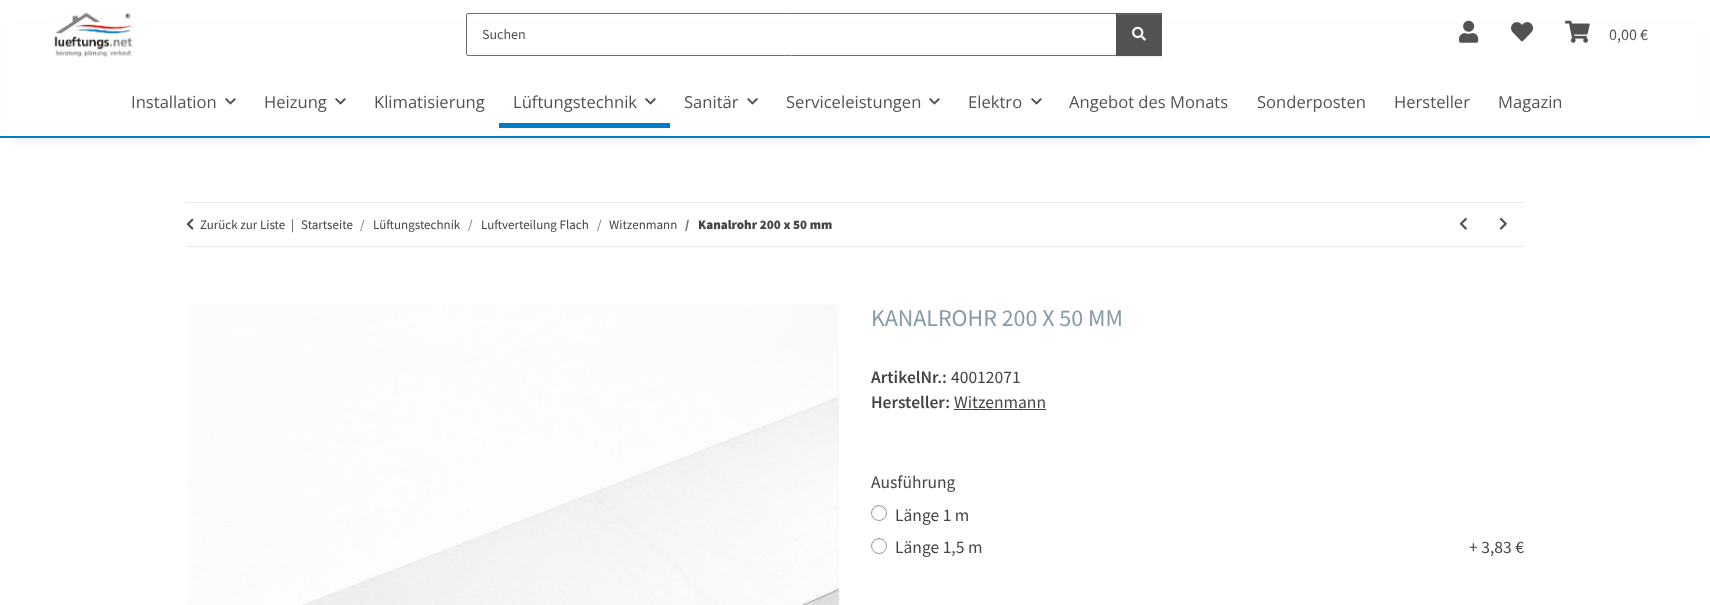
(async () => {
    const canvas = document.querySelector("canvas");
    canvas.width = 1710;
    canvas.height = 605;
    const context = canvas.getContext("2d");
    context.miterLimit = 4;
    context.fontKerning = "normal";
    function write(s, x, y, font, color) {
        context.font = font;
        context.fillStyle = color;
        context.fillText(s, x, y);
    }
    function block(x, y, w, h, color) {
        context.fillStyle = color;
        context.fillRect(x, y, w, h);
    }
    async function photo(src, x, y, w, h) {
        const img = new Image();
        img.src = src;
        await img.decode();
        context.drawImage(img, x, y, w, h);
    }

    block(0, 0, 1710, 605, "rgb(255, 255, 255)");
    context.fillStyle = "rgba(0, 0, 0, 0.06)";
    context.filter = "blur(4.5px)";
    context.beginPath();
    context.rect(12, 28, 1686, 114);
    context.fill();
    context.filter = "none";
    block(8, 24, 1694, 112, "rgb(255, 255, 255)");
    block(0, 136, 1710, 2, "rgb(0, 125, 195)");
    await photo("media/1.png", 54, 12, 79, 45);
    context.beginPath();
    context.roundRect(466.5, 13.5, 650, 42, 1.5);
    context.strokeStyle = "rgb(112, 112, 112)";
    context.stroke();
    write("Suchen", 482, 39, "14px Source Sans Pro", "rgb(82, 82, 82)");
    context.fillStyle = "rgba(0, 0, 0, 0.07)";
    context.filter = "blur(0.5px)";
    context.beginPath();
    context.rect(1116, 14, 46, 43);
    context.fill();
    context.filter = "none";
    block(1116, 13, 46, 43, "rgb(82, 82, 82)");
    block(1117, 14, 44, 1, "rgb(108, 108, 108)");
    await photo("media/2.png", 1132, 26, 14, 15);
    await photo("media/3.png", 1459, 20, 20, 23);
    await photo("media/4.png", 1511, 22, 22, 20);
    await photo("media/5.png", 1565, 20, 25, 23);
    write("0,00 €", 1609, 40, "16px Source Sans Pro", "rgb(82, 82, 82)");
    write("Installation", 131, 108, "16.6px Open Sans", "rgb(82, 82, 82)");
    await photo("media/6.png", 225, 98, 11, 7);
    write("Heizung", 264, 108, "16.6px Open Sans", "rgb(82, 82, 82)");
    await photo("media/6.png", 335, 98, 11, 7);
    write("Klimatisierung", 374, 108, "16.6px Open Sans", "rgb(82, 82, 82)");
    write("Lüftungstechnik", 513, 108, "16.6px Open Sans", "rgb(82, 82, 82)");
    await photo("media/6.png", 645, 98, 11, 7);
    block(499, 123, 171, 5, "rgb(0, 125, 195)");
    write("Sanitär", 684, 108, "16.6px Open Sans", "rgb(82, 82, 82)");
    await photo("media/6.png", 747, 98, 11, 7);
    write("Serviceleistungen", 786, 108, "16.6px Open Sans", "rgb(82, 82, 82)");
    await photo("media/6.png", 929, 98, 11, 7);
    write("Elektro", 968, 108, "16.6px Open Sans", "rgb(82, 82, 82)");
    await photo("media/6.png", 1031, 98, 11, 7);
    write("Angebot des Monats", 1069, 108, "16.6px Open Sans", "rgb(82, 82, 82)");
    write("Sonderposten", 1257, 108, "16.6px Open Sans", "rgb(82, 82, 82)");
    write("Hersteller", 1394, 108, "16.6px Open Sans", "rgb(82, 82, 82)");
    write("Magazin", 1498, 108, "16.6px Open Sans", "rgb(82, 82, 82)");
    block(186, 202, 1338, 1, "rgb(235, 235, 235)");
    block(186, 246, 1338, 1, "rgb(235, 235, 235)");
    await photo("media/7.png", 186, 218, 8, 12);
    write("Zurück zur Liste", 200, 229, "13px Source Sans Pro", "rgb(68, 68, 68)");
    write("|", 291, 229, "13px Source Sans Pro", "rgb(68, 68, 68)");
    write("Startseite", 301, 229, "13px Source Sans Pro", "rgb(68, 68, 68)");
    write("/", 360, 229, "13px Source Sans Pro", "rgb(112, 112, 112)");
    write("Lüftungstechnik", 373, 229, "13px Source Sans Pro", "rgb(68, 68, 68)");
    write("/", 468, 229, "13px Source Sans Pro", "rgb(112, 112, 112)");
    write("Luftverteilung Flach", 481, 229, "13px Source Sans Pro", "rgb(68, 68, 68)");
    write("/", 597, 229, "13px Source Sans Pro", "rgb(112, 112, 112)");
    write("Witzenmann", 609, 229, "13px Source Sans Pro", "rgb(68, 68, 68)");
    write("/", 685, 229, "900 13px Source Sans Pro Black", "rgb(112, 112, 112)");
    write("Kanalrohr 200 x 50 mm", 698, 229, "900 13px Source Sans Pro Black", "rgb(68, 68, 68)");
    await photo("media/8.png", 1459, 217, 8, 13);
    await photo("media/9.png", 1499, 217, 8, 13);
    await photo("media/10.png", 187, 304, 652, 301);
    write("KANALROHR 200 X 50 MM", 871, 326, "24px Source Sans Pro", "rgb(133, 155, 166)");
    write("ArtikelNr.:", 871, 383, "600 17.5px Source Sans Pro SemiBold", "rgb(68, 68, 68)");
    write("40012071", 951, 383, "17.5px Source Sans Pro", "rgb(68, 68, 68)");
    write("Hersteller:", 871, 408, "600 17.5px Source Sans Pro SemiBold", "rgb(68, 68, 68)");
    write("Witzenmann", 954, 408, "17.5px Source Sans Pro", "rgb(68, 68, 68)");
    block(954, 409, 92, 1, "rgb(68, 68, 68)");
    write("Ausführung", 871, 488, "17.5px Source Sans Pro", "rgb(68, 68, 68)");
    context.fillStyle = "rgb(236, 236, 236)";
    context.beginPath();
    context.moveTo(879, 507);
    context.bezierCurveTo(884, 507, 886, 511.5, 885.5, 515);
    context.bezierCurveTo(886, 513.5, 886, 512, 885.5, 510.5);
    context.bezierCurveTo(882, 502, 869.5, 507, 872.5, 515);
    context.bezierCurveTo(872, 511.5, 874, 507, 879, 507);
    context.closePath();
    context.fill();
    context.beginPath();
    context.arc(879, 513, 7.5, 0, Math.PI * 2);
    context.strokeStyle = "rgb(155, 155, 155)";
    context.stroke();
    write("Länge 1 m", 895, 521, "17.5px Source Sans Pro", "rgb(68, 68, 68)");
    context.fillStyle = "rgb(236, 236, 236)";
    context.beginPath();
    context.moveTo(879, 540);
    context.bezierCurveTo(884, 540, 886, 544.5, 885.5, 548);
    context.bezierCurveTo(886, 546.5, 886, 545, 885.5, 543.5);
    context.bezierCurveTo(882, 535, 869.5, 540, 872.5, 548);
    context.bezierCurveTo(872, 544.5, 874, 540, 879, 540);
    context.closePath();
    context.fill();
    context.beginPath();
    context.arc(879, 546, 7.5, 0, Math.PI * 2);
    context.stroke();
    write("Länge 1,5 m", 895, 553, "17.5px Source Sans Pro", "rgb(68, 68, 68)");
    write("+ 3,83 €", 1469, 553, "17.5px Source Sans Pro", "rgb(68, 68, 68)");
})();
